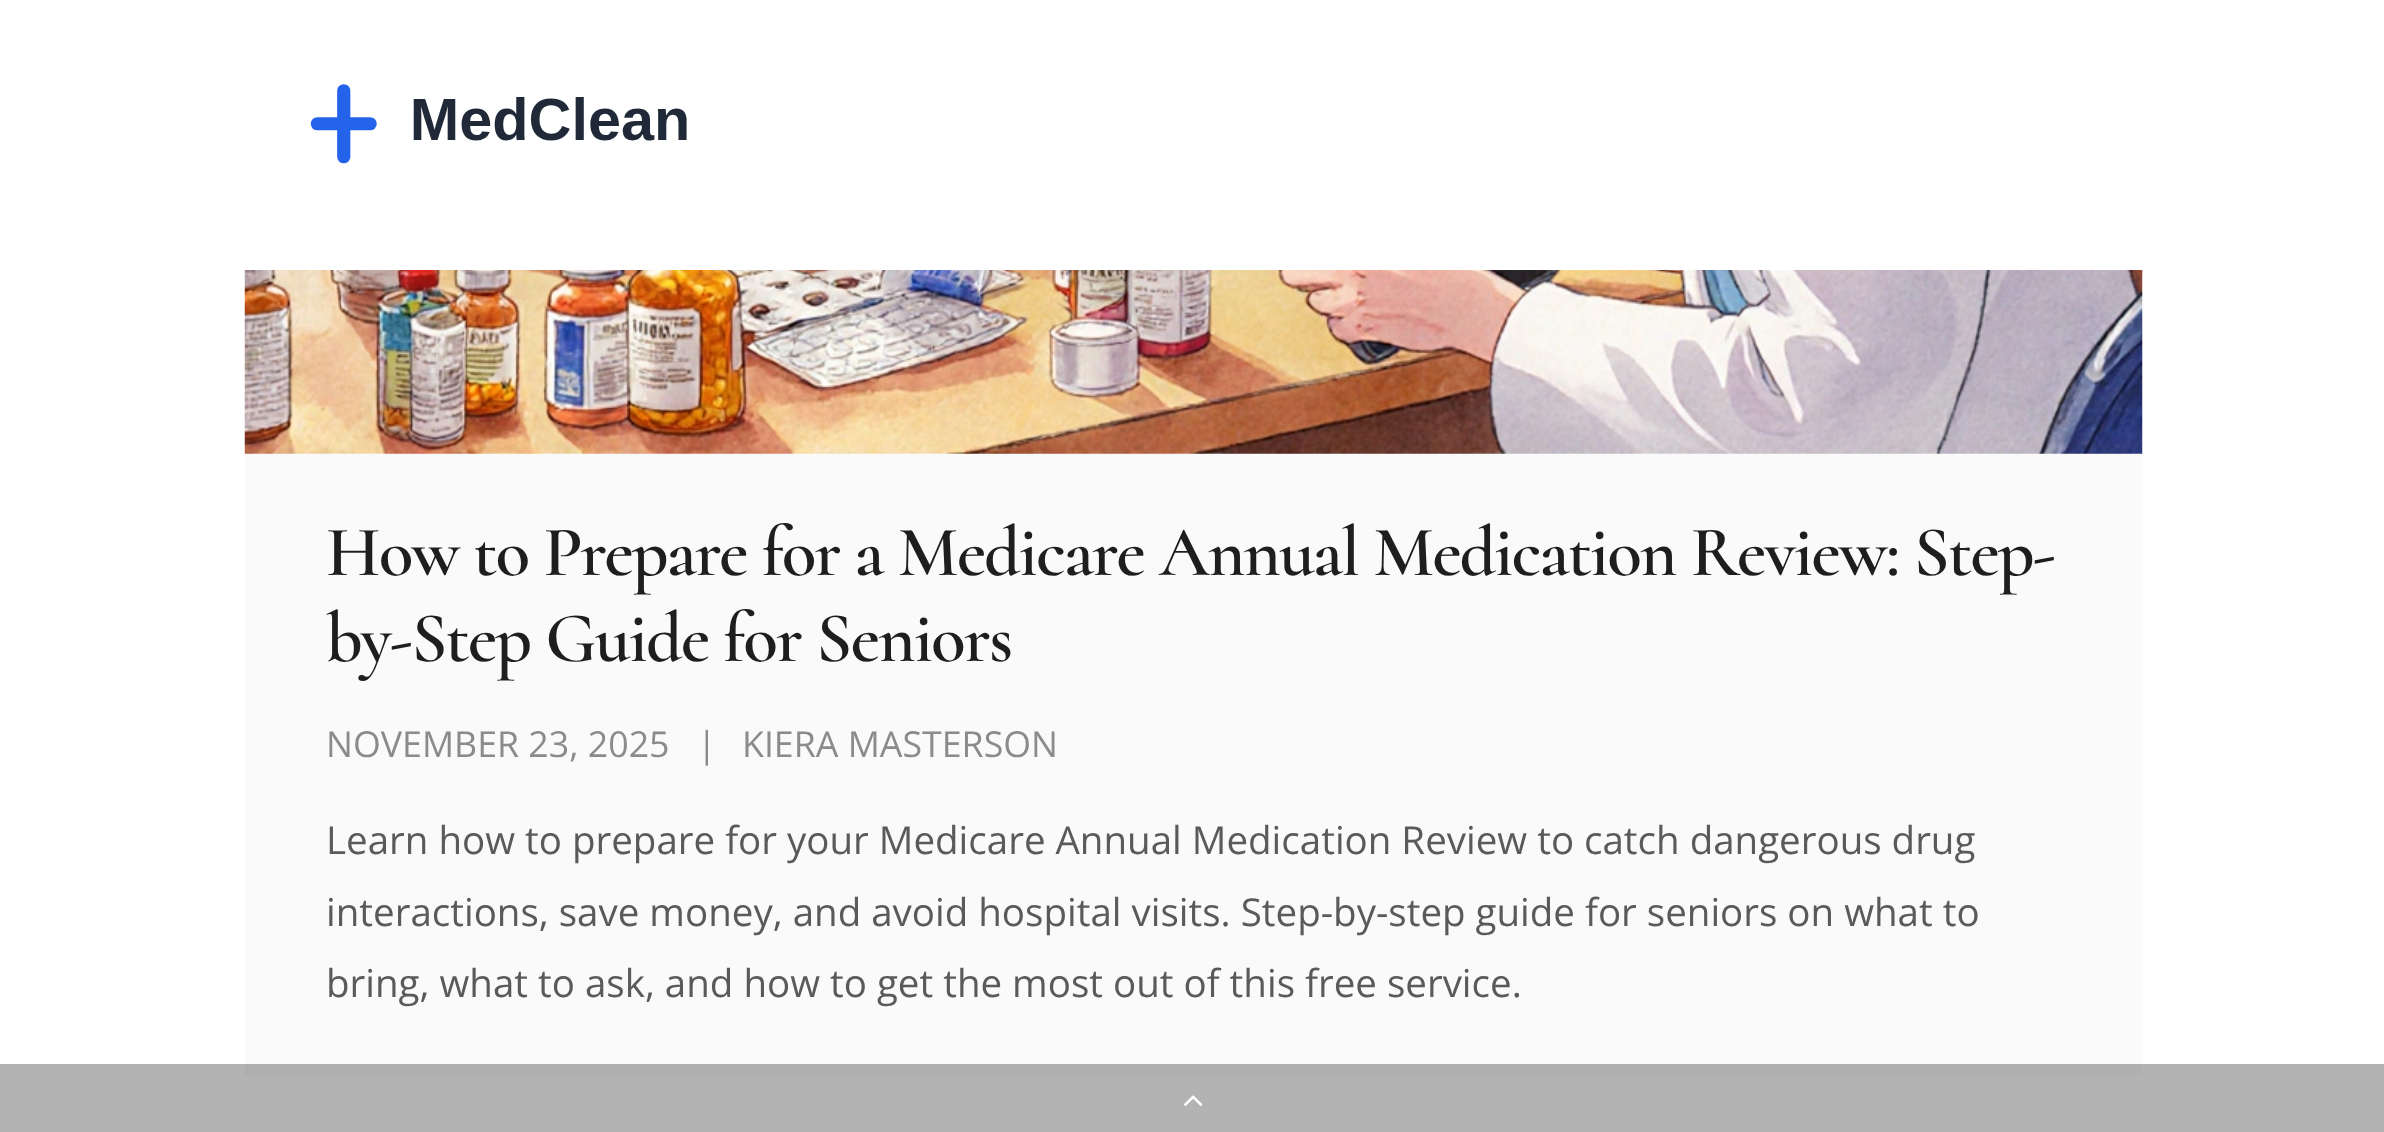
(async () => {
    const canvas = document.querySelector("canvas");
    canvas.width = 2384;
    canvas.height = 1132;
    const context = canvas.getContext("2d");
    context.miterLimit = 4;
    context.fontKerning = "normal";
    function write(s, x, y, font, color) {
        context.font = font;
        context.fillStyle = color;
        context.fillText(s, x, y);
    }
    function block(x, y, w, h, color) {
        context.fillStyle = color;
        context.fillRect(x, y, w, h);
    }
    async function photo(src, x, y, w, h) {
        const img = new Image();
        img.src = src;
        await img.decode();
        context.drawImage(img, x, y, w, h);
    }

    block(0, 0, 2384, 1132, "rgb(255, 255, 255)");
    block(0, 1064, 2384, 68, "rgb(179, 179, 179)");
    await photo("media/1.png", 310, 84, 377, 80);
    await photo("media/2.png", 244, 270, 1899, 184);
    block(245, 454, 1897, 610, "rgb(250, 250, 250)");
    block(245, 1064, 1897, 11, "rgb(175, 175, 175)");
    context.letterSpacing = "-1.82px";
    write("How to Prepare for a Medicare Annual Medication Review: Step-", 326, 575, "600 71.5px Cormorant", "rgb(30, 30, 30)");
    write("by-Step Guide for Seniors", 326, 661, "600 71.5px Cormorant", "rgb(30, 30, 30)");
    context.letterSpacing = "0px";
    write("NOVEMBER 23, 2025", 326, 757, "35.75px Open Sans", "rgb(139, 139, 139)");
    write("|", 697, 757, "35.75px Open Sans", "rgb(139, 139, 139)");
    write("KIERA MASTERSON", 742, 757, "35.75px Open Sans", "rgb(139, 139, 139)");
    write("Learn how to prepare for your Medicare Annual Medication Review to catch dangerous drug", 326, 854, "38.5px Open Sans", "rgb(90, 90, 90)");
    write("interactions, save money, and avoid hospital visits. Step-by-step guide for seniors on what to", 326, 926, "38.5px Open Sans", "rgb(90, 90, 90)");
    write("bring, what to ask, and how to get the most out of this free service.", 326, 997, "38.5px Open Sans", "rgb(90, 90, 90)");
    await photo("media/3.png", 1184, 1095, 19, 11);
})();
